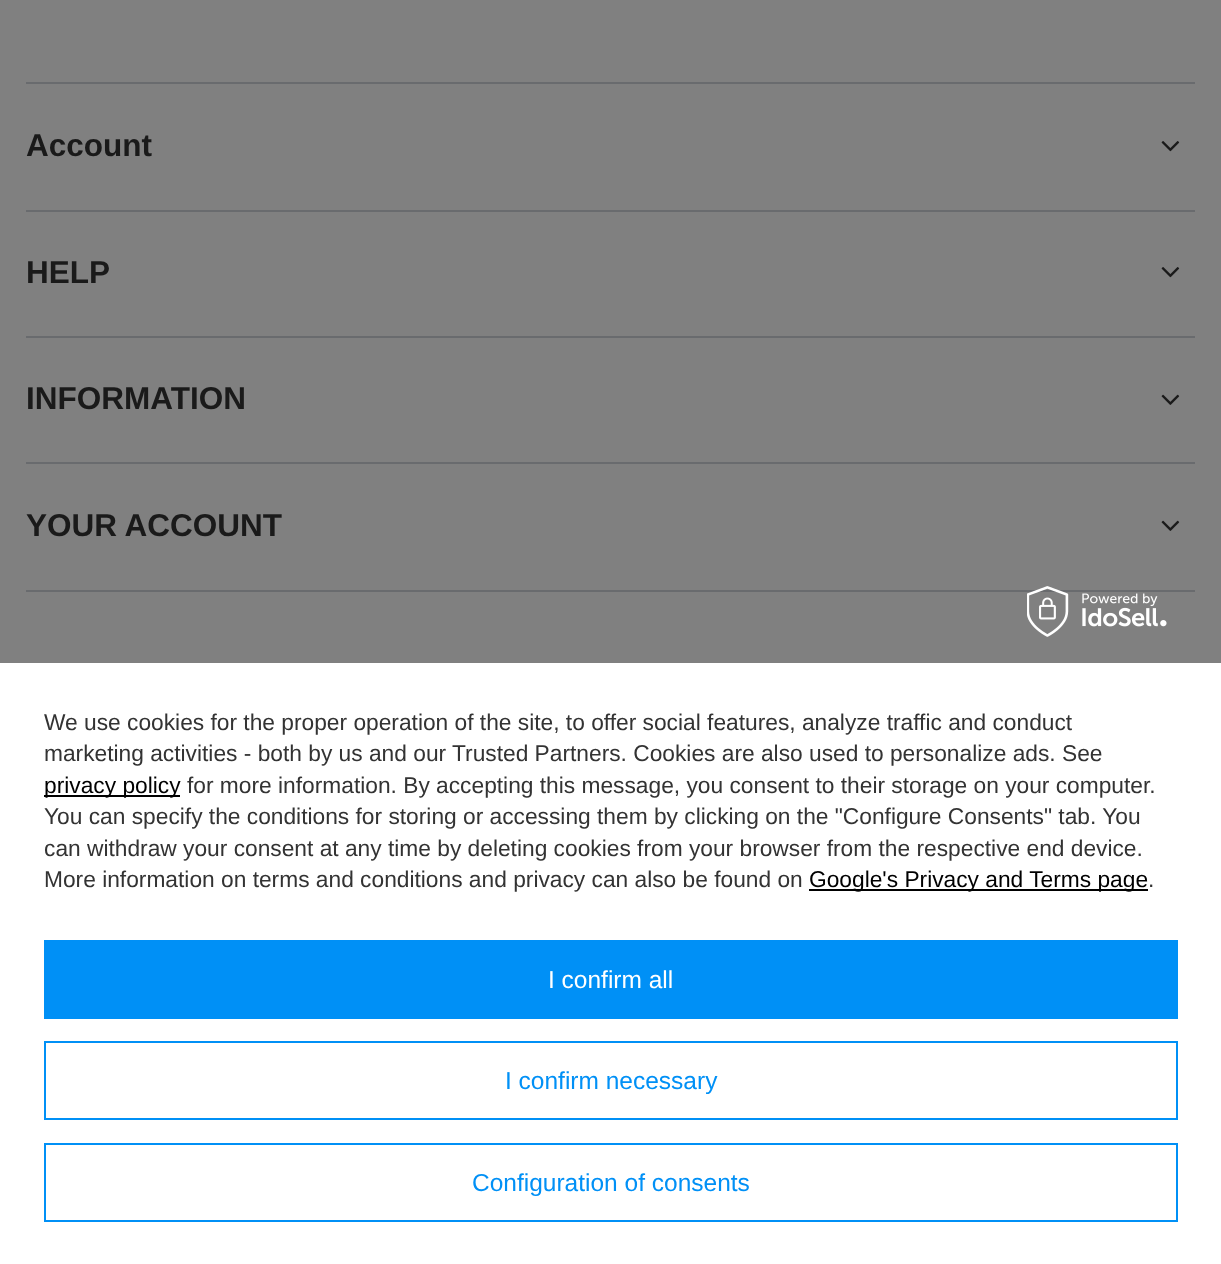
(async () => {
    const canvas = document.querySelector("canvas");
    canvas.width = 1221;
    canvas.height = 1264;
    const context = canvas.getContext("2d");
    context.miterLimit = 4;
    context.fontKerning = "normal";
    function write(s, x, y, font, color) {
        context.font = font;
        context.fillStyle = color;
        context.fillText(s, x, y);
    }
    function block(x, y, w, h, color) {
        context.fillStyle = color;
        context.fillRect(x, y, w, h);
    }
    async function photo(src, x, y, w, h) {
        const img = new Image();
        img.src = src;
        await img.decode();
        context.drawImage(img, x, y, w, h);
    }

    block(0, 0, 1221, 1264, "rgb(128, 128, 128)");
    block(26, 82, 1169, 2, "rgb(105, 107, 110)");
    block(26, 210, 1169, 2, "rgb(105, 107, 110)");
    write("Account", 26, 156, "bold 31.5px Liberation Sans", "rgb(26, 26, 26)");
    await photo("media/1.png", 1161, 141, 19, 11);
    block(26, 336, 1169, 2, "rgb(105, 107, 110)");
    write("HELP", 26, 283, "bold 31.5px Liberation Sans", "rgb(26, 26, 26)");
    await photo("media/1.png", 1161, 267, 19, 11);
    block(26, 462, 1169, 2, "rgb(105, 107, 110)");
    write("INFORMATION", 26, 409, "bold 31.5px Liberation Sans", "rgb(26, 26, 26)");
    await photo("media/2.png", 1161, 394, 19, 11);
    block(26, 590, 1169, 2, "rgb(105, 107, 110)");
    write("YOUR ACCOUNT", 26, 536, "bold 31.5px Liberation Sans", "rgb(26, 26, 26)");
    await photo("media/2.png", 1161, 520, 19, 11);
    block(0, 663, 1221, 601, "rgb(255, 255, 255)");
    await photo("media/3.png", 1027, 586, 140, 51);
    write("We use cookies for the proper operation of the site, to offer social features, analyze traffic and conduct", 44, 730, "22.75px Liberation Sans", "rgb(51, 51, 51)");
    write("marketing activities - both by us and our Trusted Partners. Cookies are also used to personalize ads. See", 44, 761, "22.75px Liberation Sans", "rgb(51, 51, 51)");
    block(44, 795, 136, 2, "rgb(0, 0, 0)");
    write("privacy policy", 44, 793, "22.75px Liberation Sans", "rgb(0, 0, 0)");
    write("for more information. By accepting this message, you consent to their storage on your computer.", 187, 793, "22.75px Liberation Sans", "rgb(51, 51, 51)");
    write("You can specify the conditions for storing or accessing them by clicking on the \"Configure Consents\" tab. You", 44, 824, "22.75px Liberation Sans", "rgb(51, 51, 51)");
    write("can withdraw your consent at any time by deleting cookies from your browser from the respective end device.", 44, 856, "22.75px Liberation Sans", "rgb(51, 51, 51)");
    write("More information on terms and conditions and privacy can also be found on", 44, 887, "22.75px Liberation Sans", "rgb(51, 51, 51)");
    block(809, 889, 339, 2, "rgb(0, 0, 0)");
    write("Google's Privacy and Terms page", 809, 887, "22.75px Liberation Sans", "rgb(0, 0, 0)");
    write(".", 1148, 887, "22.75px Liberation Sans", "rgb(51, 51, 51)");
    block(44, 940, 1134, 79, "rgb(0, 144, 246)");
    write("I confirm all", 548, 988, "24.5px Liberation Sans", "rgb(255, 255, 255)");
    context.strokeStyle = "rgb(0, 144, 246)";
    context.lineWidth = 2;
    context.strokeRect(45, 1042, 1132, 77);
    write("I confirm necessary", 505, 1089, "24.5px Liberation Sans", "rgb(0, 144, 246)");
    context.strokeRect(45, 1144, 1132, 77);
    write("Configuration of consents", 472, 1191, "24.5px Liberation Sans", "rgb(0, 144, 246)");
})();
